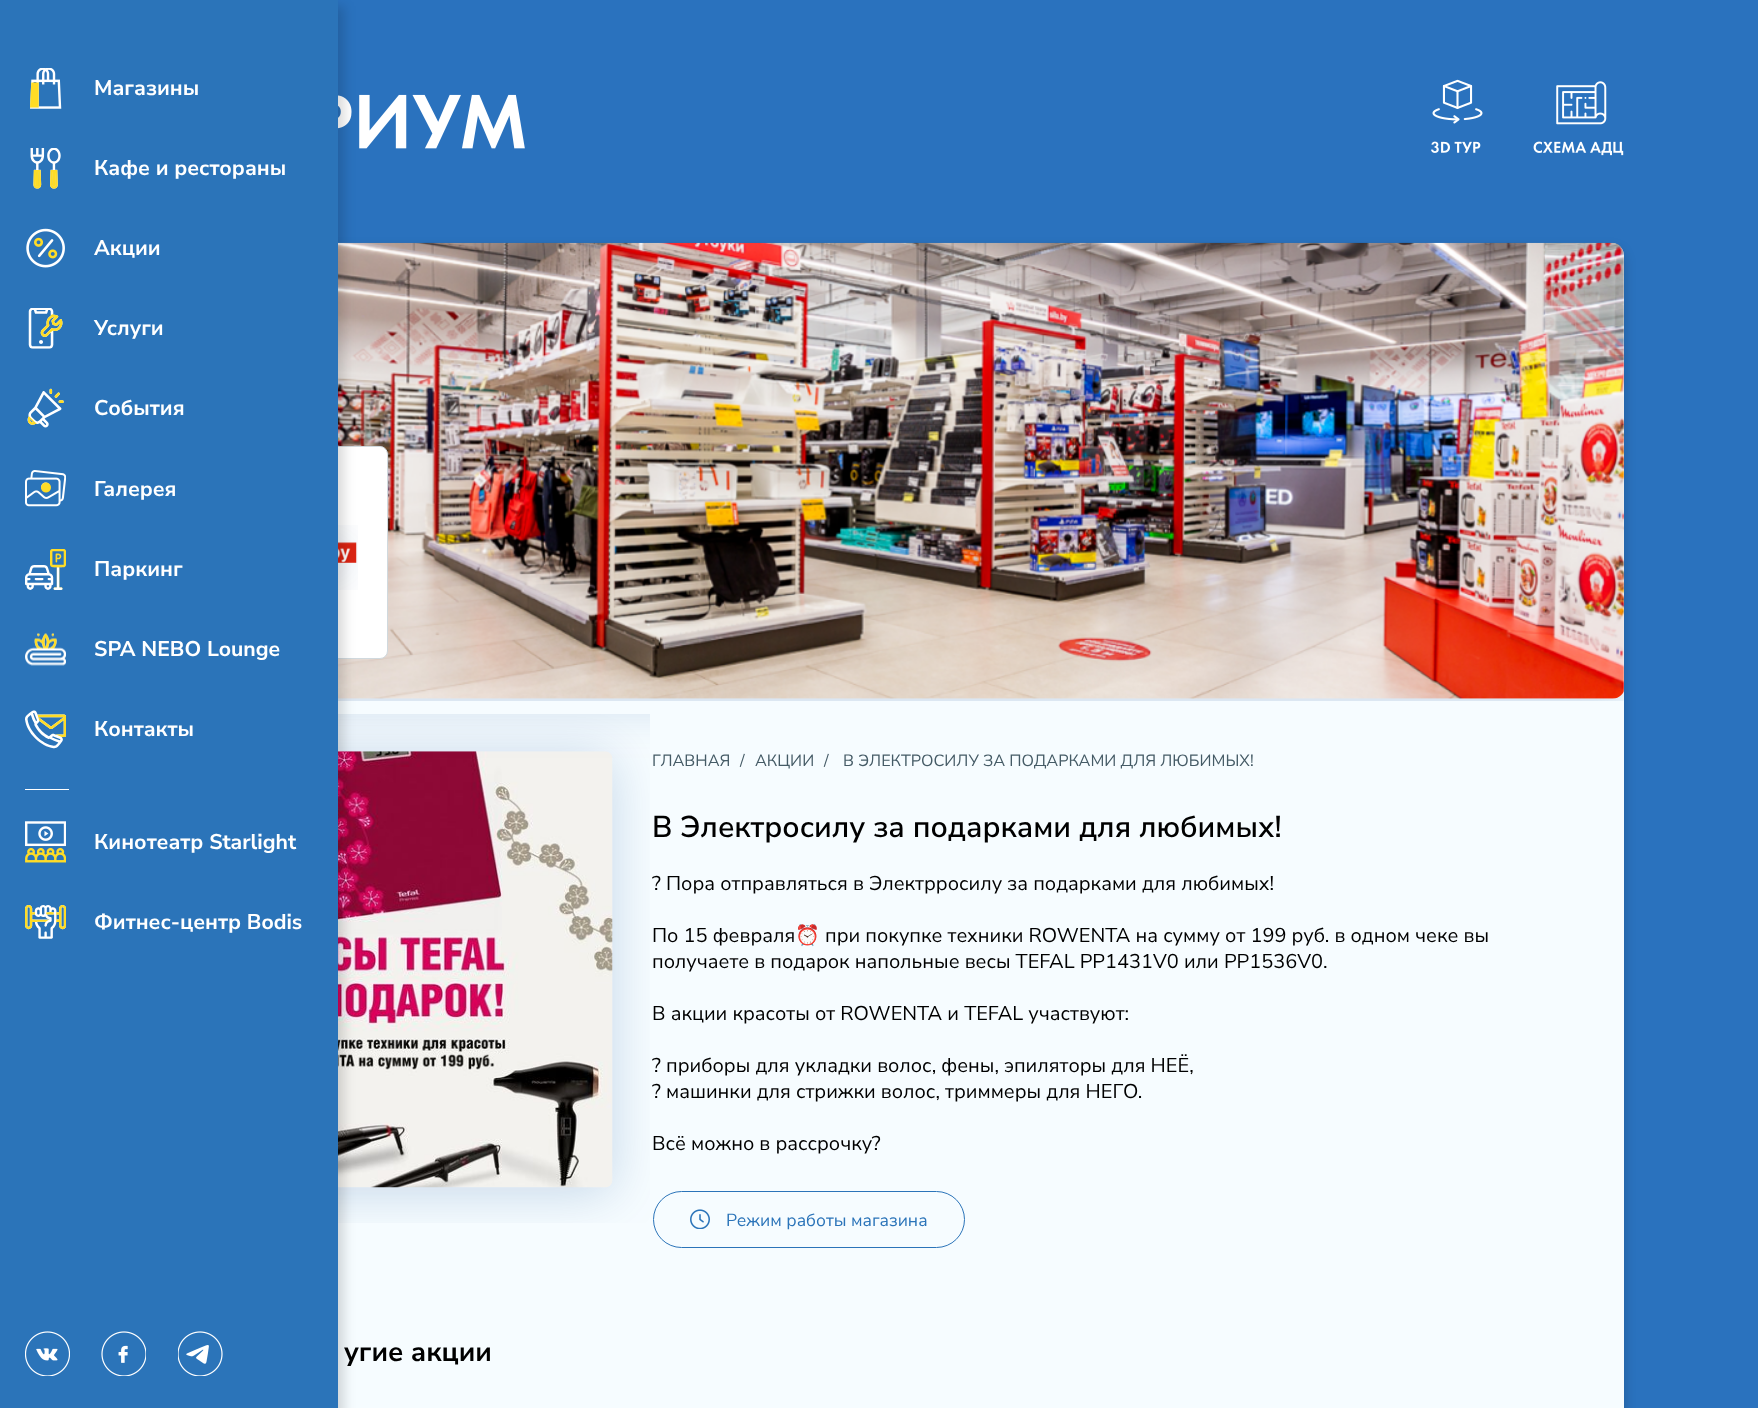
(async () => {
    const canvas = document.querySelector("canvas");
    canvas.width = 1758;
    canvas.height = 1408;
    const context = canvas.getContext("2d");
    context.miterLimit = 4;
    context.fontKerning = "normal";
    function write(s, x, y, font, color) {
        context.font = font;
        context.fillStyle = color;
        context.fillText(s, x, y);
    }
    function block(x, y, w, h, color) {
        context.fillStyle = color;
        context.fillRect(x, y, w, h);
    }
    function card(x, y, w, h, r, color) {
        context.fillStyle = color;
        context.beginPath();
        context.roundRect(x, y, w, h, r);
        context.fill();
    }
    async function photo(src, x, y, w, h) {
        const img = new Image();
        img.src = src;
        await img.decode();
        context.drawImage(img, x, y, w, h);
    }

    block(0, 0, 1758, 1408, "rgb(42, 114, 190)");
    await photo("media/15.png", 338, 94, 187, 55);
    context.fillStyle = "rgba(0, 0, 0, 0.2)";
    context.filter = "blur(6px)";
    context.beginPath();
    context.roundRect(136, 249, 1488, 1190, 13);
    context.fill();
    context.filter = "none";
    card(136, 243, 1488, 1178, 13, "rgb(246, 252, 255)");
    await photo("media/19.png", 338, 242, 1286, 459);
    context.fillStyle = "rgb(255, 255, 255)";
    context.beginPath();
    context.roundRect(175.5, 446.5, 212, 212, 7.5);
    context.fill();
    context.strokeStyle = "rgb(208, 217, 222)";
    context.stroke();
    await photo("media/18.png", 338, 525, 20, 65);
    await photo("media/20.png", 338, 714, 312, 509);
    context.fillStyle = "rgba(0, 0, 0, 0.15)";
    context.filter = "blur(6px)";
    context.beginPath();
    context.rect(-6, 6, 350, 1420);
    context.fill();
    context.filter = "none";
    block(0, 0, 338, 1408, "rgb(43, 116, 185)");
    await photo("media/1.png", 30, 68, 32, 41);
    write("Магазины", 94, 95, "bold 21.25px Nunito Sans", "rgb(255, 255, 255)");
    await photo("media/2.png", 30, 148, 31, 41);
    write("Кафе и рестораны", 94, 175, "bold 21.25px Nunito Sans", "rgb(255, 255, 255)");
    await photo("media/3.png", 26, 228, 39, 40);
    write("Акции", 94, 255, "bold 21.25px Nunito Sans", "rgb(255, 255, 255)");
    await photo("media/4.png", 28, 308, 35, 41);
    write("Услуги", 94, 335, "bold 21.25px Nunito Sans", "rgb(255, 255, 255)");
    await photo("media/5.png", 27, 388, 37, 40);
    write("События", 94, 415, "bold 21.25px Nunito Sans", "rgb(255, 255, 255)");
    await photo("media/6.png", 25, 470, 41, 37);
    write("Галерея", 94, 496, "bold 21.25px Nunito Sans", "rgb(255, 255, 255)");
    await photo("media/7.png", 25, 549, 41, 41);
    write("Паркинг", 94, 576, "bold 21.25px Nunito Sans", "rgb(255, 255, 255)");
    await photo("media/8.png", 25, 633, 41, 33);
    write("SPA NEBO Lounge", 94, 656, "bold 21.25px Nunito Sans", "rgb(255, 255, 255)");
    await photo("media/9.png", 25, 710, 41, 39);
    write("Контакты", 94, 736, "bold 21.25px Nunito Sans", "rgb(255, 255, 255)");
    block(25, 789, 44, 1, "rgb(255, 255, 255)");
    await photo("media/10.png", 25, 821, 41, 42);
    write("Кинотеатр Starlight", 94, 849, "bold 21.25px Nunito Sans", "rgb(255, 255, 255)");
    await photo("media/11.png", 25, 905, 41, 34);
    write("Фитнес-центр Bodis", 94, 929, "bold 21.25px Nunito Sans", "rgb(255, 255, 255)");
    await photo("media/12.png", 25, 1331, 45, 45);
    await photo("media/13.png", 101, 1331, 45, 45);
    await photo("media/14.png", 178, 1331, 45, 45);
    await photo("media/16.png", 1431, 79, 52, 74);
    await photo("media/17.png", 1533, 81, 91, 75);
    write("ГЛАВНАЯ", 652, 766, "16.25px Nunito Sans", "rgb(69, 91, 102)");
    write("/", 740, 766, "16.25px Nunito Sans", "rgb(69, 91, 102)");
    write("АКЦИИ", 755, 766, "16.25px Nunito Sans", "rgb(69, 91, 102)");
    write("/", 824, 766, "16.25px Nunito Sans", "rgb(69, 91, 102)");
    write("В ЭЛЕКТРОСИЛУ ЗА ПОДАРКАМИ ДЛЯ ЛЮБИМЫХ!", 843, 766, "16.25px Nunito Sans", "rgb(69, 91, 102)");
    write("В Электросилу за подарками для любимых!", 652, 837, "600 30px Nunito Sans", "rgb(0, 0, 0)");
    write("? Пора отправляться в Электрросилу за подарками для любимых!", 652, 890, "20px Nunito Sans", "rgb(0, 0, 0)");
    write("По 15 февраля", 652, 942, "20px Nunito Sans", "rgb(0, 0, 0)");
    write("⏰", 795, 942, "20px Noto Color Emoji", "rgb(0, 0, 0)");
    write("при покупке техники ROWENTA на сумму от 199 руб. в одном чеке вы", 825, 942, "20px Nunito Sans", "rgb(0, 0, 0)");
    write("получаете в подарок напольные весы TEFAL PP1431V0 или PP1536V0.", 652, 968, "20px Nunito Sans", "rgb(0, 0, 0)");
    write("В акции красоты от ROWENTA и TEFAL участвуют:", 652, 1020, "20px Nunito Sans", "rgb(0, 0, 0)");
    write("?️ приборы для укладки волос, фены, эпиляторы для НЕЁ,", 652, 1072, "20px Nunito Sans", "rgb(0, 0, 0)");
    write("?️ машинки для стрижки волос, триммеры для НЕГО.", 652, 1098, "20px Nunito Sans", "rgb(0, 0, 0)");
    write("Всё можно в рассрочку?", 652, 1150, "20px Nunito Sans", "rgb(0, 0, 0)");
    context.beginPath();
    context.roundRect(653.5, 1191.5, 311, 56, 28);
    context.strokeStyle = "rgb(43, 116, 185)";
    context.stroke();
    await photo("media/21.png", 690, 1209, 20, 20);
    write("Режим работы магазина", 726, 1226, "17.5px Nunito Sans", "rgb(43, 116, 185)");
    write("угие акции", 344, 1361, "bold 27.5px Nunito Sans", "rgb(0, 0, 0)");
})();
